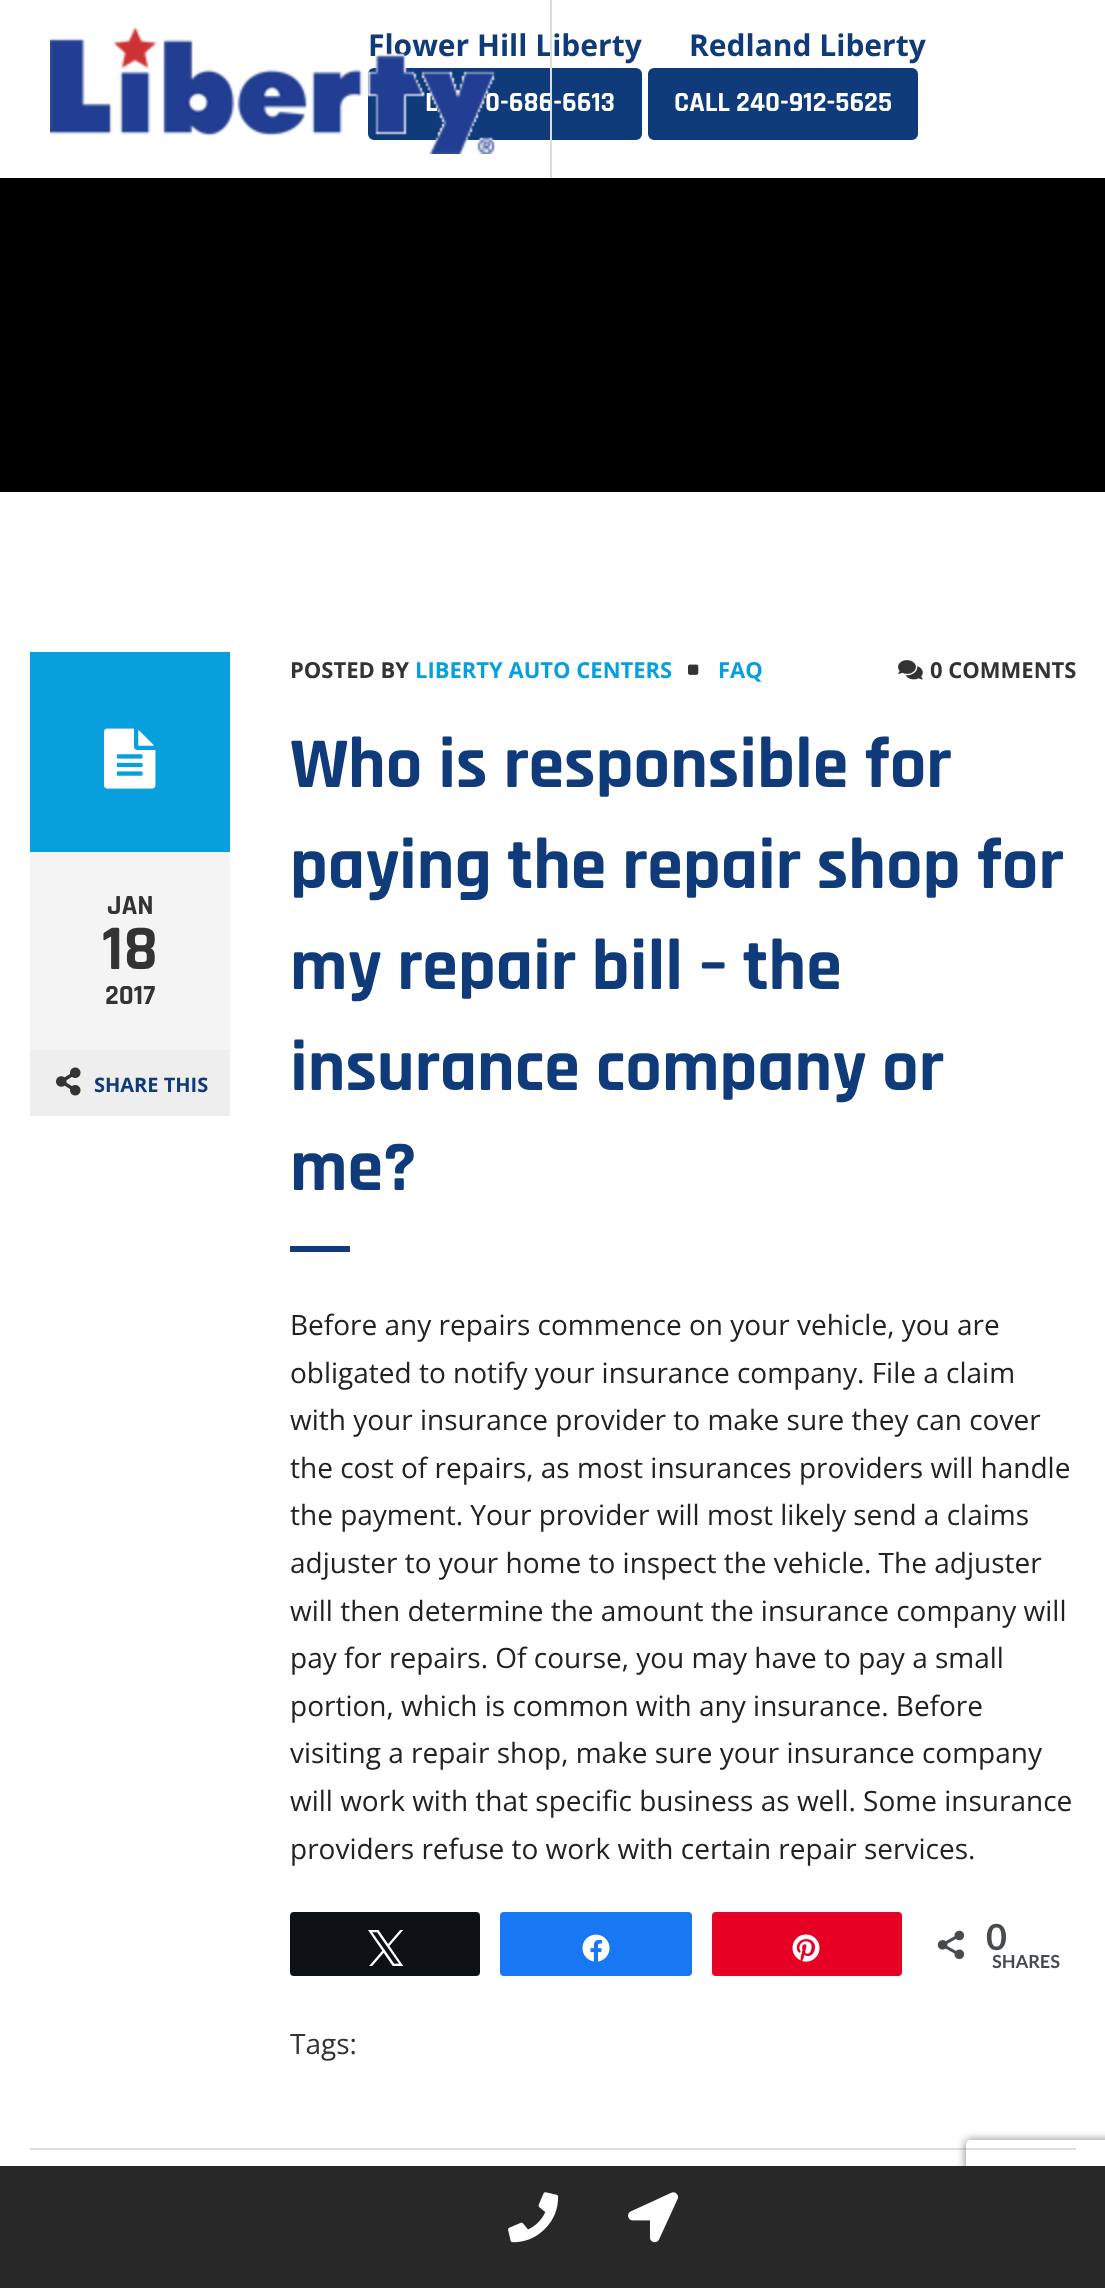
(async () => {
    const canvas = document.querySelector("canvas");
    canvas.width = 1105;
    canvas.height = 2288;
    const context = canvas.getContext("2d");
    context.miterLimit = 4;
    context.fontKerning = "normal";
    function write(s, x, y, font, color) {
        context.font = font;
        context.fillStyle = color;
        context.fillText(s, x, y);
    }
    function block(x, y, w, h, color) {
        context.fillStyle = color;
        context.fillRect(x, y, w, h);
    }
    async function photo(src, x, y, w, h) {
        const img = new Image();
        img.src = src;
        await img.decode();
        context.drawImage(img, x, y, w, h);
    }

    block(0, 0, 1105, 2288, "rgb(255, 255, 255)");
    write("Flower Hill Liberty", 368, 56, "bold 30px Open Sans", "rgb(16, 59, 122)");
    context.beginPath();
    context.roundRect(369, 69, 272, 70, 5);
    context.fill();
    context.strokeStyle = "rgb(16, 59, 122)";
    context.lineWidth = 2;
    context.stroke();
    write("0-686-6613", 485, 111, "bold 28px Rajdhani", "rgb(255, 255, 255)");
    block(550, 0, 2, 178, "rgb(221, 221, 221)");
    write("L", 425, 111, "bold 28px Rajdhani", "rgb(255, 255, 255)");
    await photo("media/1.png", 50, 27, 445, 127);
    write("Redland Liberty", 689, 56, "bold 30px Open Sans", "rgb(16, 59, 122)");
    context.beginPath();
    context.roundRect(649, 69, 268, 70, 5);
    context.fill();
    context.stroke();
    write("CALL 240-912-5625", 674, 111, "bold 28px Rajdhani", "rgb(255, 255, 255)");
    block(0, 178, 1105, 314, "rgb(0, 0, 0)");
    block(30, 2148, 1046, 2, "rgb(221, 221, 221)");
    block(30, 652, 200, 200, "rgb(7, 160, 220)");
    await photo("media/2.png", 104, 728, 52, 61);
    write("POSTED BY", 290, 678, "bold 22px Open Sans", "rgb(51, 51, 51)");
    write("LIBERTY AUTO CENTERS", 415, 678, "bold 22px Open Sans", "rgb(7, 160, 220)");
    await photo("media/3.png", 688, 664, 11, 11);
    write("FAQ", 718, 678, "bold 22px Open Sans", "rgb(7, 160, 220)");
    await photo("media/4.png", 898, 660, 25, 20);
    write("0 COMMENTS", 930, 678, "bold 22px Open Sans", "rgb(51, 51, 51)");
    write("Who is responsible for", 290, 787, "bold 72px Rajdhani", "rgb(16, 59, 122)");
    write("paying the repair shop for", 290, 888, "bold 72px Rajdhani", "rgb(16, 59, 122)");
    write("my repair bill – the", 290, 989, "bold 72px Rajdhani", "rgb(16, 59, 122)");
    write("insurance company or", 290, 1090, "bold 72px Rajdhani", "rgb(16, 59, 122)");
    write("me?", 290, 1190, "bold 72px Rajdhani", "rgb(16, 59, 122)");
    block(290, 1246, 60, 6, "rgb(16, 59, 122)");
    write("Before any repairs commence on your vehicle, you are", 290, 1335, "28px Open Sans", "rgb(34, 34, 34)");
    write("obligated to notify your insurance company. File a claim", 290, 1383, "28px Open Sans", "rgb(34, 34, 34)");
    write("with your insurance provider to make sure they can cover", 290, 1430, "28px Open Sans", "rgb(34, 34, 34)");
    write("the cost of repairs, as most insurances providers will handle", 290, 1478, "28px Open Sans", "rgb(34, 34, 34)");
    write("the payment. Your provider will most likely send a claims", 290, 1525, "28px Open Sans", "rgb(34, 34, 34)");
    write("adjuster to your home to inspect the vehicle. The adjuster", 290, 1573, "28px Open Sans", "rgb(34, 34, 34)");
    write("will then determine the amount the insurance company will", 290, 1621, "28px Open Sans", "rgb(34, 34, 34)");
    write("pay for repairs. Of course, you may have to pay a small", 290, 1668, "28px Open Sans", "rgb(34, 34, 34)");
    write("portion, which is common with any insurance. Before", 290, 1716, "28px Open Sans", "rgb(34, 34, 34)");
    write("visiting a repair shop, make sure your insurance company", 290, 1763, "28px Open Sans", "rgb(34, 34, 34)");
    write("will work with that specific business as well. Some insurance", 290, 1811, "28px Open Sans", "rgb(34, 34, 34)");
    write("providers refuse to work with certain repair services.", 290, 1859, "28px Open Sans", "rgb(34, 34, 34)");
    context.fillStyle = "rgb(13, 16, 20)";
    context.beginPath();
    context.roundRect(291, 1913, 188, 62, 3);
    context.fill();
    context.strokeStyle = "rgb(13, 16, 20)";
    context.stroke();
    await photo("media/5.png", 368, 1930, 36, 36);
    context.fillStyle = "rgb(24, 119, 242)";
    context.beginPath();
    context.roundRect(501, 1913, 190, 62, 3);
    context.fill();
    context.strokeStyle = "rgb(24, 119, 242)";
    context.stroke();
    await photo("media/6.png", 582, 1934, 28, 28);
    context.fillStyle = "rgb(230, 0, 35)";
    context.beginPath();
    context.roundRect(713, 1913, 188, 62, 3);
    context.fill();
    context.strokeStyle = "rgb(230, 0, 35)";
    context.stroke();
    await photo("media/7.png", 792, 1934, 28, 28);
    await photo("media/8.png", 937, 1930, 28, 30);
    write("0", 986, 1950, "bold 36px Lato", "rgb(71, 75, 77)");
    write("SHARES", 992, 1968, "bold 18px Lato", "rgb(71, 75, 77)");
    write("Tags:", 290, 2054, "28px Open Sans", "rgb(51, 51, 51)");
    block(30, 852, 200, 198, "rgb(244, 244, 244)");
    write("JAN", 107, 914, "bold 28px Rajdhani", "rgb(51, 51, 51)");
    write("18", 102, 969, "bold 64px Rajdhani", "rgb(51, 51, 51)");
    write("2017", 105, 1004, "bold 28px Rajdhani", "rgb(51, 51, 51)");
    block(30, 1050, 200, 66, "rgb(238, 238, 238)");
    await photo("media/9.png", 56, 1067, 25, 29);
    write("SHARE THIS", 94, 1092, "bold 20px Open Sans", "rgb(16, 59, 122)");
    context.save();
    context.beginPath();
    context.moveTo(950, 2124);
    context.lineTo(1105, 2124);
    context.lineTo(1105, 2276);
    context.lineTo(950, 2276);
    context.closePath();
    context.moveTo(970, 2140);
    context.lineTo(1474, 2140);
    context.bezierCurveTo(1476, 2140, 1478, 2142, 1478, 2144);
    context.lineTo(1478, 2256);
    context.bezierCurveTo(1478, 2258, 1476, 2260, 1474, 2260);
    context.lineTo(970, 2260);
    context.bezierCurveTo(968, 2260, 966, 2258, 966, 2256);
    context.lineTo(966, 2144);
    context.bezierCurveTo(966, 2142, 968, 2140, 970, 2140);
    context.closePath();
    context.clip("evenodd");
    context.fillStyle = "rgb(128, 128, 128)";
    context.filter = "blur(5px)";
    context.beginPath();
    context.roundRect(966, 2140, 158, 120, 4);
    context.fill();
    context.filter = "none";
    context.restore();
    block(0, 2166, 1105, 122, "rgb(40, 40, 40)");
    await photo("media/10.png", 508, 2192, 51, 51);
    await photo("media/11.png", 628, 2192, 51, 51);
})();
